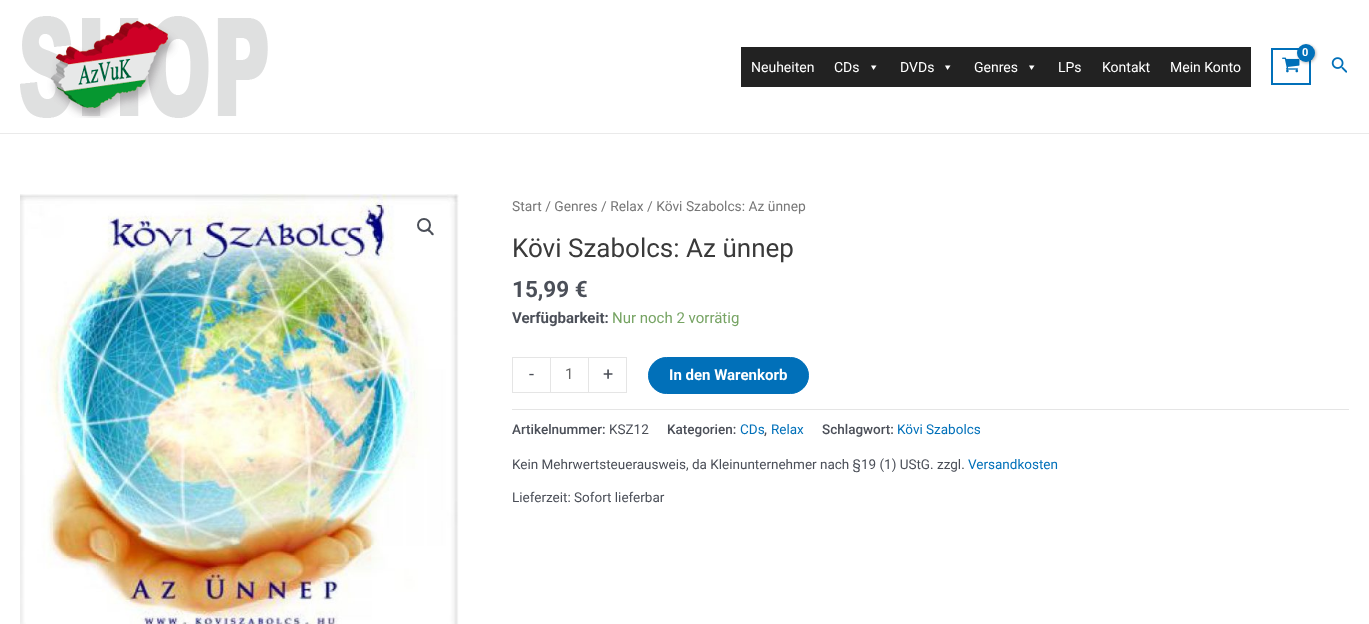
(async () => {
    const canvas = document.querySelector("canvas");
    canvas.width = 1369;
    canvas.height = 624;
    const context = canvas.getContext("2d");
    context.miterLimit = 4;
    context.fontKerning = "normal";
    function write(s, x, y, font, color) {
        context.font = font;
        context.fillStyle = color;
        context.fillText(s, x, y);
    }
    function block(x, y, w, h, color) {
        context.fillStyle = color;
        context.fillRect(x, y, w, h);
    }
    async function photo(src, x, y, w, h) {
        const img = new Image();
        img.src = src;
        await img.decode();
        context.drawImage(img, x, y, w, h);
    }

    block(0, 0, 1369, 624, "rgb(255, 255, 255)");
    block(0, 133, 1369, 1, "rgb(234, 234, 234)");
    await photo("media/1.png", 20, 16, 248, 102);
    context.strokeStyle = "rgb(1, 112, 185)";
    context.lineWidth = 2;
    context.strokeRect(1272, 49, 38, 35);
    await photo("media/2.png", 1282, 57, 18, 16);
    context.fillStyle = "rgba(0, 0, 0, 0.3)";
    context.filter = "blur(1.5px)";
    context.beginPath();
    context.roundRect(1298, 45, 18, 18, 9);
    context.fill();
    context.filter = "none";
    context.fillStyle = "rgb(1, 112, 185)";
    context.beginPath();
    context.arc(1306, 53, 9, 0, Math.PI * 2);
    context.fill();
    write("0", 1302, 56, "bold 11px Roboto", "rgb(255, 255, 255)");
    block(741, 47, 510, 40, "rgb(34, 34, 34)");
    write("Neuheiten", 751, 72, "14px Roboto", "rgb(255, 255, 255)");
    write("CDs", 834, 72, "14px Roboto", "rgb(255, 255, 255)");
    context.beginPath();
    context.moveTo(876.5, 65.5);
    context.lineTo(873.5, 70);
    context.lineTo(871, 65.5);
    context.closePath();
    context.fill();
    write("DVDs", 900, 72, "14px Roboto", "rgb(255, 255, 255)");
    context.beginPath();
    context.moveTo(950.5, 65.5);
    context.lineTo(947.5, 70);
    context.lineTo(945, 65.5);
    context.closePath();
    context.fill();
    write("Genres", 974, 72, "14px Roboto", "rgb(255, 255, 255)");
    context.beginPath();
    context.moveTo(1034.5, 65.5);
    context.lineTo(1031.5, 70);
    context.lineTo(1029, 65.5);
    context.closePath();
    context.fill();
    write("LPs", 1058, 72, "14px Roboto", "rgb(255, 255, 255)");
    write("Kontakt", 1102, 72, "14px Roboto", "rgb(255, 255, 255)");
    write("Mein Konto", 1170, 72, "14px Roboto", "rgb(255, 255, 255)");
    await photo("media/3.png", 1331, 57, 16, 16);
    await photo("media/4.png", 20, 194, 439, 430);
    context.beginPath();
    context.arc(424, 225, 6, 0, Math.PI * 2);
    context.strokeStyle = "rgb(75, 79, 88)";
    context.stroke();
    context.fillStyle = "rgb(75, 79, 88)";
    context.beginPath();
    context.moveTo(427.5, 229);
    context.bezierCurveTo(429, 228, 430.5, 230.5, 431.5, 231.5);
    context.bezierCurveTo(432, 232, 434.5, 233.5, 433.5, 235);
    context.bezierCurveTo(432, 236, 430.5, 233.5, 430, 232.5);
    context.bezierCurveTo(429, 232, 426.5, 230.5, 427.5, 229);
    context.closePath();
    context.fill();
    write("Start / Genres / Relax / Kövi Szabolcs: Az ünnep", 512, 211, "13.8px Roboto", "rgb(119, 119, 119)");
    write("Kövi Szabolcs: Az ünnep", 512, 257, "26px Roboto", "rgb(58, 58, 58)");
    write("15,99 €", 512, 297, "bold 22.5px Roboto", "rgb(75, 79, 88)");
    write("Verfügbarkeit:", 512, 323, "bold 15px Roboto", "rgb(75, 79, 88)");
    write("Nur noch 2 vorrätig", 612, 323, "15px Roboto", "rgb(119, 164, 100)");
    block(512, 357, 38, 1, "rgb(229, 229, 229)");
    block(512, 392, 38, 1, "rgb(229, 229, 229)");
    block(512, 357, 1, 36, "rgb(229, 229, 229)");
    write("-", 529, 380, "18px Roboto", "rgb(75, 79, 88)");
    context.strokeStyle = "rgb(229, 229, 229)";
    context.lineWidth = 1;
    context.strokeRect(550.5, 357.5, 38, 35);
    write("1", 565, 379, "15px Roboto", "rgb(102, 102, 102)");
    block(589, 357, 38, 1, "rgb(229, 229, 229)");
    block(626, 357, 1, 36, "rgb(229, 229, 229)");
    block(589, 392, 38, 1, "rgb(229, 229, 229)");
    write("+", 603, 380, "18px Roboto", "rgb(75, 79, 88)");
    context.fillStyle = "rgb(1, 112, 185)";
    context.beginPath();
    context.roundRect(648.5, 357.5, 160, 36, 18);
    context.fill();
    context.strokeStyle = "rgb(1, 112, 185)";
    context.stroke();
    write("In den Warenkorb", 669, 380, "bold 15px Roboto", "rgb(255, 255, 255)");
    block(512, 409, 837, 1, "rgb(229, 229, 229)");
    write("Artikelnummer:", 512, 434, "500 13.5px Roboto", "rgb(75, 79, 88)");
    write("KSZ12", 609, 434, "13.5px Roboto", "rgb(75, 79, 88)");
    write("Kategorien:", 667, 434, "500 13.5px Roboto", "rgb(75, 79, 88)");
    write("CDs", 740, 434, "13.5px Roboto", "rgb(1, 112, 185)");
    write(",", 764, 434, "500 13.5px Roboto", "rgb(75, 79, 88)");
    write("Relax", 771, 434, "13.5px Roboto", "rgb(1, 112, 185)");
    write("Schlagwort:", 822, 434, "500 13.5px Roboto", "rgb(75, 79, 88)");
    write("Kövi Szabolcs", 897, 434, "13.5px Roboto", "rgb(1, 112, 185)");
    write("Kein Mehrwertsteuerausweis, da Kleinunternehmer nach §19 (1) UStG. zzgl.", 512, 469, "13.5px Roboto", "rgb(75, 79, 88)");
    write("Versandkosten", 968, 469, "13.5px Roboto", "rgb(1, 112, 185)");
    write("Lieferzeit: Sofort lieferbar", 512, 502, "13.5px Roboto", "rgb(75, 79, 88)");
})();
